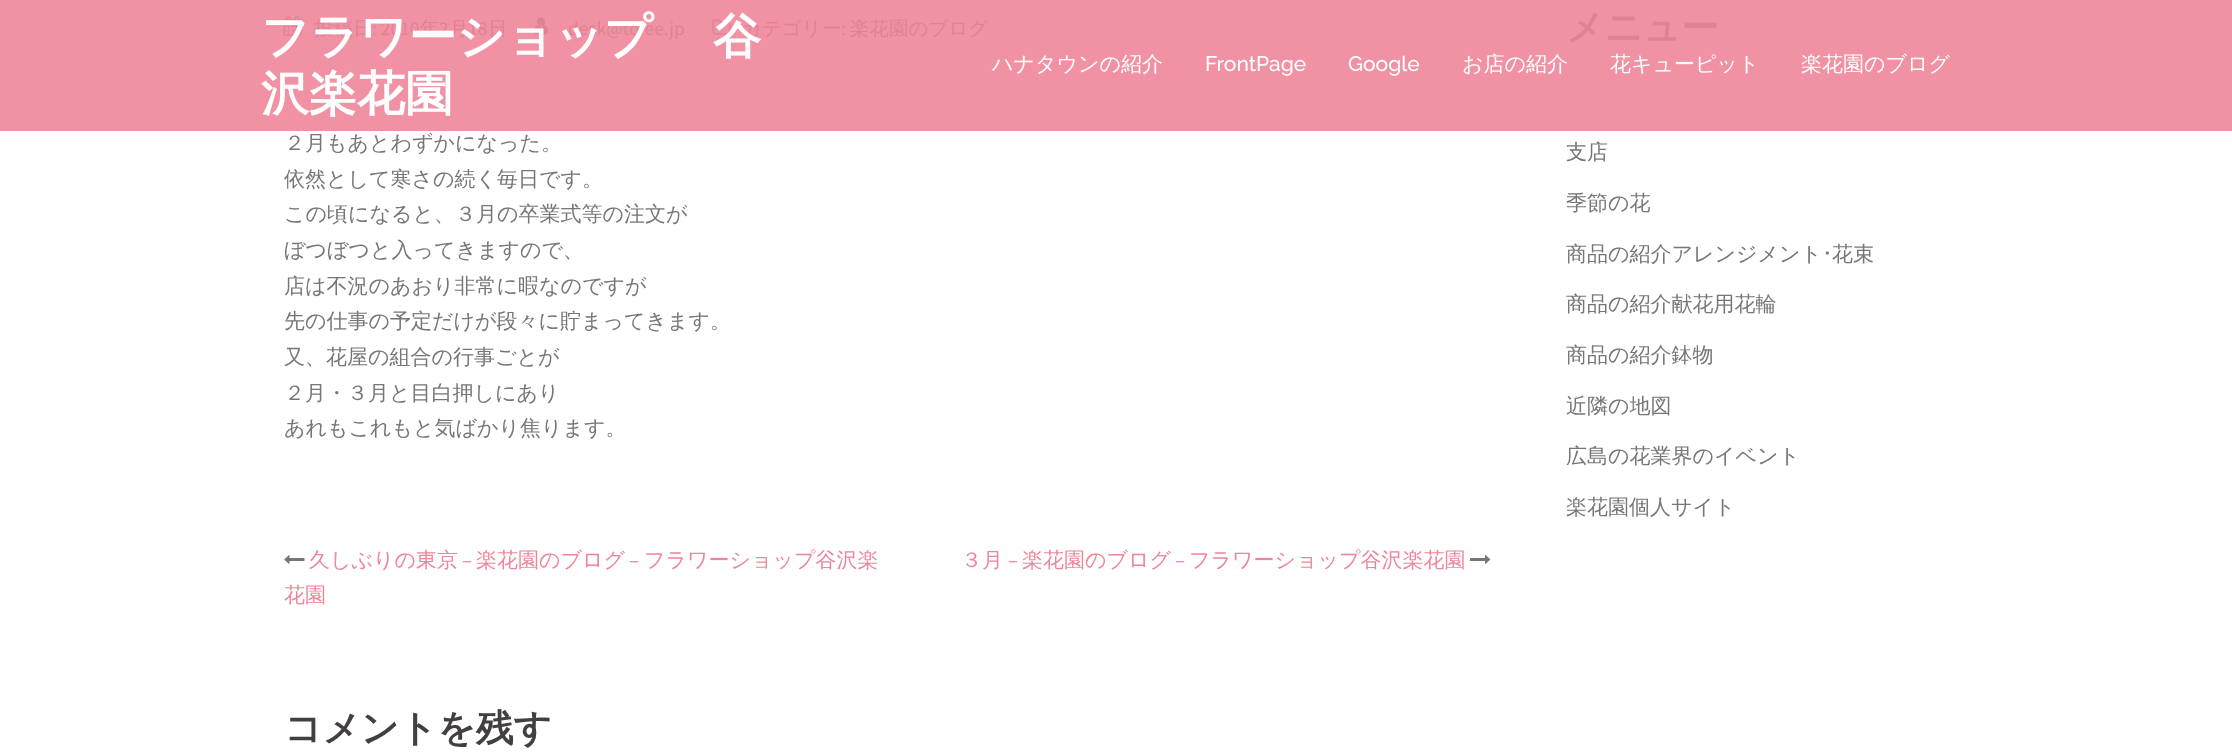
(async () => {
    const canvas = document.querySelector("canvas");
    canvas.width = 2232;
    canvas.height = 754;
    const context = canvas.getContext("2d");
    context.miterLimit = 4;
    context.fontKerning = "normal";
    function write(s, x, y, font, color) {
        context.font = font;
        context.fillStyle = color;
        context.fillText(s, x, y);
    }
    function block(x, y, w, h, color) {
        context.fillStyle = color;
        context.fillRect(x, y, w, h);
    }
    async function photo(src, x, y, w, h) {
        const img = new Image();
        img.src = src;
        await img.decode();
        context.drawImage(img, x, y, w, h);
    }

    block(0, 0, 2232, 754, "rgb(255, 255, 255)");
    block(0, 0, 2232, 131, "rgb(240, 146, 164)");
    await photo("media/1.png", 283, 16, 19, 20);
    write("投稿日", 314, 35, "500 19.5px WenQuanYi Zen Hei", "rgb(224, 130, 148)");
    write(": 2010", 372, 35, "19.5px Source Sans Pro", "rgb(224, 130, 148)");
    write("年", 420, 35, "500 19.5px WenQuanYi Zen Hei", "rgb(224, 130, 148)");
    write("2", 439, 35, "19.5px Source Sans Pro", "rgb(224, 130, 148)");
    write("月", 449, 35, "500 19.5px WenQuanYi Zen Hei", "rgb(224, 130, 148)");
    write("18", 468, 35, "19.5px Source Sans Pro", "rgb(224, 130, 148)");
    write("日", 488, 35, "500 19.5px WenQuanYi Zen Hei", "rgb(224, 130, 148)");
    await photo("media/2.png", 534, 17, 14, 18);
    write("desk@toiee.jp", 568, 35, "19.5px Source Sans Pro", "rgb(224, 130, 148)");
    write("フラワーショップ", 261, 53, "bold 48px WenQuanYi Zen Hei", "rgb(255, 255, 255)");
    await photo("media/3.png", 712, 19, 19, 16);
    write("カテゴリー", 742, 35, "500 19.5px WenQuanYi Zen Hei", "rgb(224, 130, 148)");
    write("谷", 713, 53, "bold 48px WenQuanYi Zen Hei", "rgb(255, 255, 255)");
    write("沢楽花園", 261, 110, "bold 48px WenQuanYi Zen Hei", "rgb(255, 255, 255)");
    write("ハナタウンの紹介", 992, 71, "500 21px WenQuanYi Zen Hei", "rgb(255, 255, 255)");
    write("FrontPage", 1205, 71, "500 21px Raleway", "rgb(255, 255, 255)");
    write("Google", 1348, 71, "500 21px Raleway", "rgb(255, 255, 255)");
    write("お店の紹介", 1462, 71, "500 21px WenQuanYi Zen Hei", "rgb(255, 255, 255)");
    write("花キューピット", 1610, 71, "500 21px WenQuanYi Zen Hei", "rgb(255, 255, 255)");
    write("楽花園のブログ", 1801, 71, "500 21px WenQuanYi Zen Hei", "rgb(255, 255, 255)");
    write(":", 841, 35, "19.5px Source Sans Pro", "rgb(224, 130, 148)");
    write("楽花園のブログ", 850, 35, "500 19.5px WenQuanYi Zen Hei", "rgb(224, 130, 148)");
    write("２月もあとわずかになった。", 284, 150, "500 21px WenQuanYi Zen Hei", "rgb(118, 118, 118)");
    write("依然として寒さの続く毎日です。", 284, 186, "500 21px WenQuanYi Zen Hei", "rgb(118, 118, 118)");
    write("この頃になると、３月の卒業式等の注文が", 284, 221, "500 21px WenQuanYi Zen Hei", "rgb(118, 118, 118)");
    write("ぼつぼつと入ってきますので、", 284, 257, "500 21px WenQuanYi Zen Hei", "rgb(118, 118, 118)");
    write("店は不況のあおり非常に暇なのですが", 284, 293, "500 21px WenQuanYi Zen Hei", "rgb(118, 118, 118)");
    write("先の仕事の予定だけが段々に貯まってきます。", 284, 328, "500 21px WenQuanYi Zen Hei", "rgb(118, 118, 118)");
    write("又、花屋の組合の行事ごとが", 284, 364, "500 21px WenQuanYi Zen Hei", "rgb(118, 118, 118)");
    write("２月・３月と目白押しにあり", 284, 400, "500 21px WenQuanYi Zen Hei", "rgb(118, 118, 118)");
    write("あれもこれもと気ばかり焦ります。", 284, 435, "500 21px WenQuanYi Zen Hei", "rgb(118, 118, 118)");
    await photo("media/4.png", 284, 555, 21, 9);
    write("久しぶりの東京", 309, 567, "500 21px WenQuanYi Zen Hei", "rgb(238, 134, 154)");
    write("–", 462, 567, "21px Source Sans Pro", "rgb(238, 134, 154)");
    write("楽花園のブログ", 476, 567, "500 21px WenQuanYi Zen Hei", "rgb(238, 134, 154)");
    write("–", 629, 567, "21px Source Sans Pro", "rgb(238, 134, 154)");
    write("フラワーショップ谷沢楽", 644, 567, "500 21px WenQuanYi Zen Hei", "rgb(238, 134, 154)");
    write("花園", 284, 602, "500 21px WenQuanYi Zen Hei", "rgb(238, 134, 154)");
    write("３月", 961, 567, "500 21px WenQuanYi Zen Hei", "rgb(238, 134, 154)");
    write("–", 1008, 567, "21px Source Sans Pro", "rgb(238, 134, 154)");
    write("楽花園のブログ", 1022, 567, "500 21px WenQuanYi Zen Hei", "rgb(238, 134, 154)");
    write("–", 1175, 567, "21px Source Sans Pro", "rgb(238, 134, 154)");
    write("フラワーショップ谷沢楽花園", 1189, 567, "500 21px WenQuanYi Zen Hei", "rgb(238, 134, 154)");
    await photo("media/5.png", 1470, 555, 21, 9);
    write("コメントを残す", 284, 741, "bold 37.5px WenQuanYi Zen Hei", "rgb(68, 63, 63)");
    write("メニュー", 1566, 40, "bold 37.5px WenQuanYi Zen Hei", "rgb(224, 130, 148)");
    write("支店", 1566, 159, "500 21px WenQuanYi Zen Hei", "rgb(118, 118, 118)");
    write("季節の花", 1566, 210, "500 21px WenQuanYi Zen Hei", "rgb(118, 118, 118)");
    write("商品の紹介アレンジメント", 1566, 261, "500 21px WenQuanYi Zen Hei", "rgb(118, 118, 118)");
    write("･", 1822, 261, "21px IPAPGothic", "rgb(118, 118, 118)");
    write("花束", 1832, 261, "500 21px WenQuanYi Zen Hei", "rgb(118, 118, 118)");
    write("商品の紹介献花用花輪", 1566, 311, "500 21px WenQuanYi Zen Hei", "rgb(118, 118, 118)");
    write("商品の紹介鉢物", 1566, 362, "500 21px WenQuanYi Zen Hei", "rgb(118, 118, 118)");
    write("近隣の地図", 1566, 413, "500 21px WenQuanYi Zen Hei", "rgb(118, 118, 118)");
    write("広島の花業界のイベント", 1566, 463, "500 21px WenQuanYi Zen Hei", "rgb(118, 118, 118)");
    write("楽花園個人サイト", 1566, 514, "500 21px WenQuanYi Zen Hei", "rgb(118, 118, 118)");
})();
